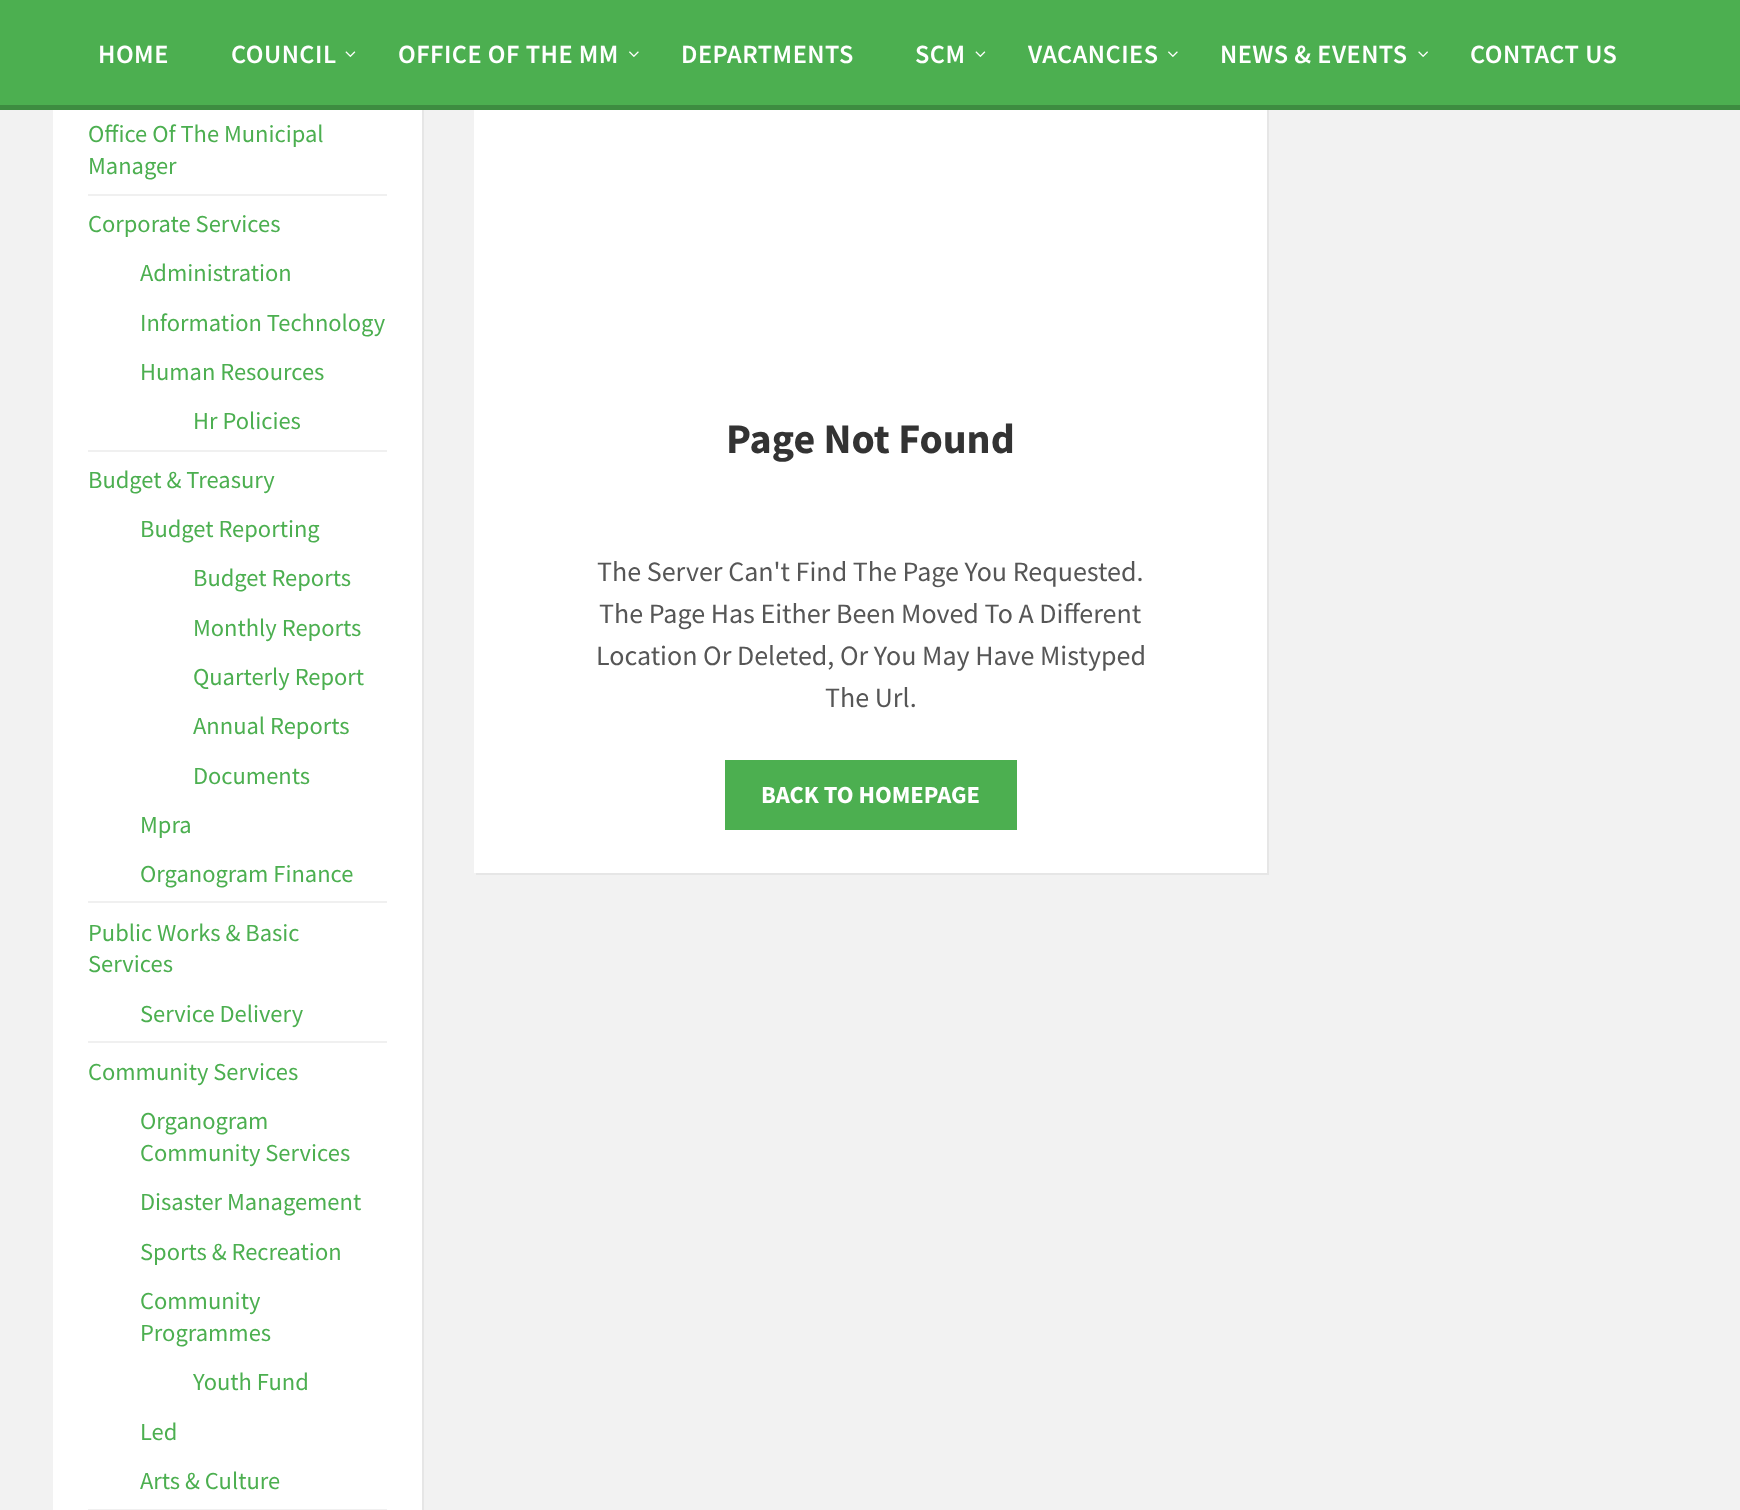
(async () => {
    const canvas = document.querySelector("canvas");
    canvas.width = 1740;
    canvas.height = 1510;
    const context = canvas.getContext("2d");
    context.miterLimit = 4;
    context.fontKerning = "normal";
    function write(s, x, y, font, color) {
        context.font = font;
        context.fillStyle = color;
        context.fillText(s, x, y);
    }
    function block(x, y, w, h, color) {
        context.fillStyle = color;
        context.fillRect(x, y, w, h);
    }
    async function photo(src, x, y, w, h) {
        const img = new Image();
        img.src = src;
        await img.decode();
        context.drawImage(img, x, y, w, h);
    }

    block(0, 0, 1740, 1510, "rgb(242, 242, 242)");
    context.fillStyle = "rgb(230, 230, 230)";
    context.beginPath();
    context.moveTo(54, 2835);
    context.lineTo(54, 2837);
    context.lineTo(424, 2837);
    context.lineTo(424, 25);
    context.lineTo(422, 25);
    context.lineTo(422, 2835);
    context.closePath();
    context.fill();
    context.beginPath();
    context.moveTo(476, 873);
    context.lineTo(476, 875);
    context.lineTo(1269, 875);
    context.lineTo(1269, 25);
    context.lineTo(1267, 25);
    context.lineTo(1267, 873);
    context.closePath();
    context.fill();
    block(0, 0, 1740, 105, "rgb(76, 175, 80)");
    block(0, 105, 1740, 5, "rgb(61, 140, 64)");
    context.letterSpacing = "0.5px";
    write("HOME", 98, 63, "600 26.25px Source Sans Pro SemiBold", "rgb(255, 255, 255)");
    write("COUNCIL", 231, 63, "600 26.25px Source Sans Pro SemiBold", "rgb(255, 255, 255)");
    await photo("media/1.png", 345, 51, 11, 6);
    write("OFFICE OF THE MM", 398, 63, "600 26.25px Source Sans Pro SemiBold", "rgb(255, 255, 255)");
    await photo("media/2.png", 629, 51, 10, 6);
    write("DEPARTMENTS", 681, 63, "600 26.25px Source Sans Pro SemiBold", "rgb(255, 255, 255)");
    write("SCM", 915, 63, "600 26.25px Source Sans Pro SemiBold", "rgb(255, 255, 255)");
    await photo("media/1.png", 975, 51, 11, 6);
    write("VACANCIES", 1028, 63, "600 26.25px Source Sans Pro SemiBold", "rgb(255, 255, 255)");
    await photo("media/2.png", 1168, 51, 10, 6);
    write("NEWS & EVENTS", 1220, 63, "600 26.25px Source Sans Pro SemiBold", "rgb(255, 255, 255)");
    await photo("media/3.png", 1418, 51, 10, 6);
    write("CONTACT US", 1470, 63, "600 26.25px Source Sans Pro SemiBold", "rgb(255, 255, 255)");
    block(53, 110, 369, 1400, "rgb(255, 255, 255)");
    context.letterSpacing = "0px";
    write("Office Of The Municipal", 88, 142, "24.5px Source Sans Pro", "rgb(76, 175, 80)");
    write("Manager", 88, 174, "24.5px Source Sans Pro", "rgb(76, 175, 80)");
    block(88, 194, 299, 2, "rgb(240, 240, 240)");
    write("Corporate Services", 88, 232, "24.5px Source Sans Pro", "rgb(76, 175, 80)");
    write("Administration", 140, 281, "24.5px Source Sans Pro", "rgb(76, 175, 80)");
    write("Information Technology", 140, 331, "24.5px Source Sans Pro", "rgb(76, 175, 80)");
    write("Human Resources", 140, 380, "24.5px Source Sans Pro", "rgb(76, 175, 80)");
    write("Hr Policies", 193, 429, "24.5px Source Sans Pro", "rgb(76, 175, 80)");
    block(88, 450, 299, 2, "rgb(240, 240, 240)");
    write("Budget & Treasury", 88, 488, "24.5px Source Sans Pro", "rgb(76, 175, 80)");
    write("Budget Reporting", 140, 537, "24.5px Source Sans Pro", "rgb(76, 175, 80)");
    write("Budget Reports", 193, 586, "24.5px Source Sans Pro", "rgb(76, 175, 80)");
    write("Monthly Reports", 193, 636, "24.5px Source Sans Pro", "rgb(76, 175, 80)");
    write("Quarterly Report", 193, 685, "24.5px Source Sans Pro", "rgb(76, 175, 80)");
    write("Annual Reports", 193, 734, "24.5px Source Sans Pro", "rgb(76, 175, 80)");
    write("Documents", 193, 784, "24.5px Source Sans Pro", "rgb(76, 175, 80)");
    write("Mpra", 140, 833, "24.5px Source Sans Pro", "rgb(76, 175, 80)");
    write("Organogram Finance", 140, 882, "24.5px Source Sans Pro", "rgb(76, 175, 80)");
    block(88, 901, 299, 2, "rgb(240, 240, 240)");
    write("Public Works & Basic", 88, 941, "24.5px Source Sans Pro", "rgb(76, 175, 80)");
    write("Services", 88, 972, "24.5px Source Sans Pro", "rgb(76, 175, 80)");
    write("Service Delivery", 140, 1022, "24.5px Source Sans Pro", "rgb(76, 175, 80)");
    block(88, 1041, 299, 2, "rgb(240, 240, 240)");
    write("Community Services", 88, 1080, "24.5px Source Sans Pro", "rgb(76, 175, 80)");
    write("Organogram", 140, 1129, "24.5px Source Sans Pro", "rgb(76, 175, 80)");
    write("Community Services", 140, 1161, "24.5px Source Sans Pro", "rgb(76, 175, 80)");
    write("Disaster Management", 140, 1210, "24.5px Source Sans Pro", "rgb(76, 175, 80)");
    write("Sports & Recreation", 140, 1260, "24.5px Source Sans Pro", "rgb(76, 175, 80)");
    write("Community", 140, 1309, "24.5px Source Sans Pro", "rgb(76, 175, 80)");
    write("Programmes", 140, 1341, "24.5px Source Sans Pro", "rgb(76, 175, 80)");
    write("Youth Fund", 193, 1390, "24.5px Source Sans Pro", "rgb(76, 175, 80)");
    write("Led", 140, 1440, "24.5px Source Sans Pro", "rgb(76, 175, 80)");
    write("Arts & Culture", 140, 1489, "24.5px Source Sans Pro", "rgb(76, 175, 80)");
    block(88, 1509, 299, 1, "rgb(240, 240, 240)");
    block(474, 110, 793, 763, "rgb(255, 255, 255)");
    write("Page Not Found", 726, 453, "bold 42px Source Sans Pro", "rgb(51, 51, 51)");
    write("The Server Can't Find The Page You Requested.", 597, 581, "28px Source Sans Pro", "rgb(86, 86, 86)");
    write("The Page Has Either Been Moved To A Different", 599, 623, "28px Source Sans Pro", "rgb(86, 86, 86)");
    write("Location Or Deleted, Or You May Have Mistyped", 596, 665, "28px Source Sans Pro", "rgb(86, 86, 86)");
    write("The Url.", 825, 707, "28px Source Sans Pro", "rgb(86, 86, 86)");
    block(725, 760, 292, 70, "rgb(76, 175, 80)");
    write("BACK TO HOMEPAGE", 761, 803, "bold 24.5px Source Sans Pro", "rgb(255, 255, 255)");
})();
